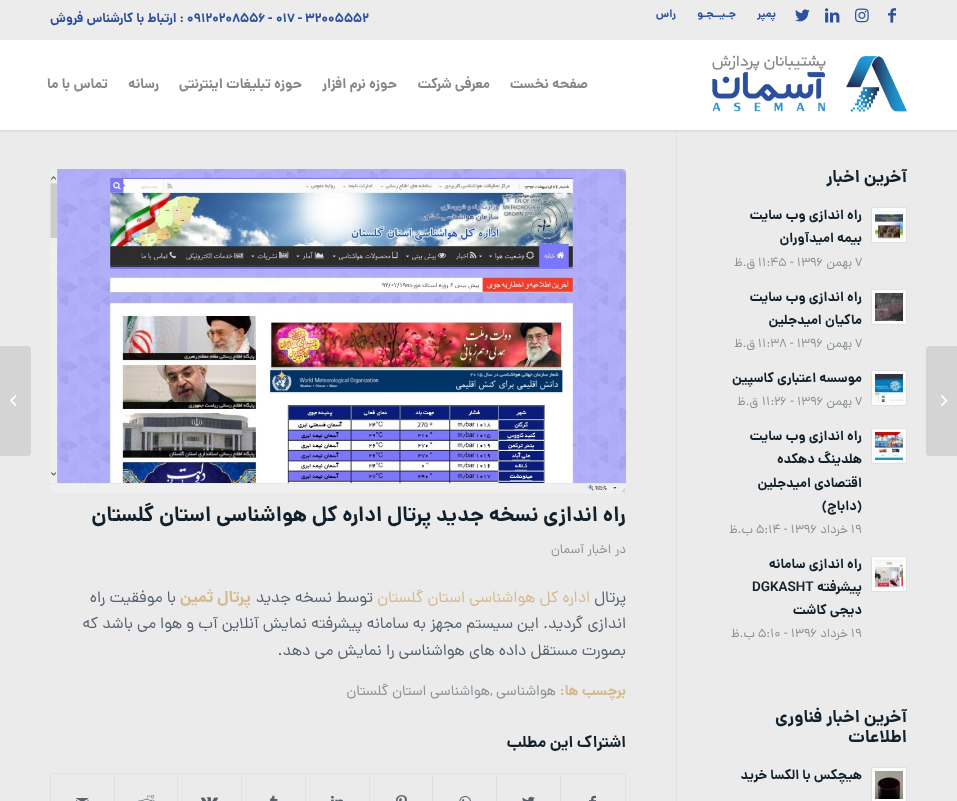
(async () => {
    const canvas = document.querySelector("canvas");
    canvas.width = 957;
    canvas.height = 801;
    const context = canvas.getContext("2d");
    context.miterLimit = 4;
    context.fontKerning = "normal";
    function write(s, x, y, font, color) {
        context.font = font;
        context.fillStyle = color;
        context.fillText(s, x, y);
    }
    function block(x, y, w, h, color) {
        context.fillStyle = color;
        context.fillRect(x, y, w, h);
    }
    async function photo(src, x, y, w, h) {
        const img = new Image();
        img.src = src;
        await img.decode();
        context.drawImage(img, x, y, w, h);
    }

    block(0, 0, 957, 801, "rgb(235, 235, 235)");
    block(676, 130, 1, 671, "rgb(225, 225, 225)");
    context.fillStyle = "rgba(0, 0, 0, 0.1)";
    context.filter = "blur(1px)";
    context.beginPath();
    context.rect(-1, -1, 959, 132);
    context.fill();
    context.filter = "none";
    block(0, 0, 957, 40, "rgb(236, 236, 236)");
    await photo("media/1.png", 888, 8, 8, 15);
    await photo("media/2.png", 855, 8, 14, 15);
    await photo("media/3.png", 825, 8, 15, 15);
    await photo("media/4.png", 795, 9, 15, 13);
    context.direction = "rtl";
    write("پمپر", 776, 17, "bold 11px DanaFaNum", "rgb(44, 80, 157)");
    write("جـیــجـو", 736, 17, "bold 11px DanaFaNum", "rgb(44, 80, 157)");
    write("راس", 676, 17, "bold 11px DanaFaNum", "rgb(44, 80, 157)");
    context.direction = "ltr";
    write("۰۱۷ - ۳۲۰۰۵۵۵۲", 276, 22, "bold 13px DanaFaNum", "rgb(44, 80, 157)");
    write("-", 268, 22, "bold 13px DanaFaNum", "rgb(44, 80, 157)");
    write("۰۹۱۲۰۲۰۸۵۵۶", 187, 22, "bold 13px DanaFaNum", "rgb(44, 80, 157)");
    context.direction = "rtl";
    write(": ارتباط با کارشناس فروش", 184, 22, "bold 13px DanaFaNum", "rgb(44, 80, 157)");
    block(0, 40, 957, 90, "rgb(255, 255, 255)");
    await photo("media/5.png", 712, 55, 195, 57);
    write("صفحه نخست", 588, 88, "bold 14px DanaFaNum", "rgb(135, 135, 135)");
    write("معرفی شرکت", 490, 88, "bold 14px DanaFaNum", "rgb(135, 135, 135)");
    write("حوزه نرم افزار", 397, 88, "bold 14px DanaFaNum", "rgb(135, 135, 135)");
    write("حوزه تبلیغات اینترنتی", 302, 88, "bold 14px DanaFaNum", "rgb(135, 135, 135)");
    write("رسانه", 159, 88, "bold 14px DanaFaNum", "rgb(135, 135, 135)");
    write("تماس با ما", 108, 88, "bold 14px DanaFaNum", "rgb(135, 135, 135)");
    context.fillStyle = "rgb(212, 212, 212)";
    context.beginPath();
    context.roundRect(926, 346, 31, 110, [4, 0, 0, 4]);
    context.fill();
    await photo("media/6.png", 941, 395, 7, 11);
    write("آخرین اخبار", 907, 182, "bold 17.5px DanaFaNum", "rgb(17, 32, 42)");
    context.fillStyle = "rgb(252, 252, 252)";
    context.beginPath();
    context.rect(871.5, 207.5, 35, 35);
    context.fill();
    context.strokeStyle = "rgb(225, 225, 225)";
    context.stroke();
    await photo("media/7.png", 875, 211, 28, 28);
    write("راه اندازی وب سایت", 862, 219, "bold 13.5px DanaFaNum", "rgb(17, 32, 42)");
    write("بیمه امیدآوران", 862, 242, "bold 13.5px DanaFaNum", "rgb(17, 32, 42)");
    context.direction = "ltr";
    write("7", 855, 266, "12.5px DanaFaNum", "rgb(136, 144, 149)");
    context.direction = "rtl";
    write("بهمن", 852, 266, "12.5px DanaFaNum", "rgb(136, 144, 149)");
    context.direction = "ltr";
    write("11:45 - 1396", 758, 266, "12.5px DanaFaNum", "rgb(136, 144, 149)");
    context.direction = "rtl";
    write("ق.ظ", 755, 266, "12.5px DanaFaNum", "rgb(136, 144, 149)");
    context.fillStyle = "rgb(252, 252, 252)";
    context.beginPath();
    context.rect(871.5, 289.5, 35, 35);
    context.fill();
    context.stroke();
    await photo("media/8.png", 875, 293, 28, 28);
    write("راه اندازی وب سایت", 862, 301, "bold 13.5px DanaFaNum", "rgb(17, 32, 42)");
    write("ماکیان امیدجلین", 862, 324, "bold 13.5px DanaFaNum", "rgb(17, 32, 42)");
    context.direction = "ltr";
    write("7", 855, 347, "12.5px DanaFaNum", "rgb(136, 144, 149)");
    context.direction = "rtl";
    write("بهمن", 852, 347, "12.5px DanaFaNum", "rgb(136, 144, 149)");
    context.direction = "ltr";
    write("11:38 - 1396", 758, 347, "12.5px DanaFaNum", "rgb(136, 144, 149)");
    context.direction = "rtl";
    write("ق.ظ", 755, 347, "12.5px DanaFaNum", "rgb(136, 144, 149)");
    context.fillStyle = "rgb(252, 252, 252)";
    context.beginPath();
    context.rect(871.5, 370.5, 35, 35);
    context.fill();
    context.stroke();
    await photo("media/9.png", 875, 374, 28, 28);
    write("موسسه اعتباری کاسپین", 862, 382, "bold 13.5px DanaFaNum", "rgb(17, 32, 42)");
    context.direction = "ltr";
    write("7", 855, 405, "12.5px DanaFaNum", "rgb(136, 144, 149)");
    context.direction = "rtl";
    write("بهمن", 852, 405, "12.5px DanaFaNum", "rgb(136, 144, 149)");
    context.direction = "ltr";
    write("11:26 - 1396", 762, 405, "12.5px DanaFaNum", "rgb(136, 144, 149)");
    context.direction = "rtl";
    write("ق.ظ", 758, 405, "12.5px DanaFaNum", "rgb(136, 144, 149)");
    context.fillStyle = "rgb(252, 252, 252)";
    context.beginPath();
    context.rect(871.5, 428.5, 35, 35);
    context.fill();
    context.stroke();
    await photo("media/10.png", 875, 432, 28, 28);
    write("راه اندازی وب سایت", 862, 440, "bold 13.5px DanaFaNum", "rgb(17, 32, 42)");
    write("هلدینگ دهکده", 862, 463, "bold 13.5px DanaFaNum", "rgb(17, 32, 42)");
    write("اقتصادی امیدجلین", 862, 487, "bold 13.5px DanaFaNum", "rgb(17, 32, 42)");
    write("(داباج)", 862, 510, "bold 13.5px DanaFaNum", "rgb(17, 32, 42)");
    context.direction = "ltr";
    write("19", 851, 533, "12.5px DanaFaNum", "rgb(136, 144, 149)");
    context.direction = "rtl";
    write("خرداد", 848, 533, "12.5px DanaFaNum", "rgb(136, 144, 149)");
    context.direction = "ltr";
    write("5:14 - 1396", 756, 533, "12.5px DanaFaNum", "rgb(136, 144, 149)");
    context.direction = "rtl";
    write("ب.ظ", 753, 533, "12.5px DanaFaNum", "rgb(136, 144, 149)");
    context.fillStyle = "rgb(252, 252, 252)";
    context.beginPath();
    context.rect(871.5, 556.5, 35, 35);
    context.fill();
    context.stroke();
    await photo("media/11.png", 875, 560, 28, 28);
    write("راه اندازی سامانه", 862, 568, "bold 13.5px DanaFaNum", "rgb(17, 32, 42)");
    write("پیشرفته", 862, 591, "bold 13.5px DanaFaNum", "rgb(17, 32, 42)");
    context.direction = "ltr";
    write("DGKASHT", 752, 591, "bold 13.5px DanaFaNum", "rgb(17, 32, 42)");
    context.direction = "rtl";
    write("دیجی کاشت", 862, 614, "bold 13.5px DanaFaNum", "rgb(17, 32, 42)");
    context.direction = "ltr";
    write("19", 851, 637, "12.5px DanaFaNum", "rgb(136, 144, 149)");
    context.direction = "rtl";
    write("خرداد", 848, 637, "12.5px DanaFaNum", "rgb(136, 144, 149)");
    context.direction = "ltr";
    write("5:10 - 1396", 758, 637, "12.5px DanaFaNum", "rgb(136, 144, 149)");
    context.direction = "rtl";
    write("ب.ظ", 755, 637, "12.5px DanaFaNum", "rgb(136, 144, 149)");
    write("آخرین اخبار فناوری", 907, 722, "bold 17.5px DanaFaNum", "rgb(17, 32, 42)");
    write("اطلاعات", 907, 742, "bold 17.5px DanaFaNum", "rgb(17, 32, 42)");
    context.fillStyle = "rgb(252, 252, 252)";
    context.beginPath();
    context.rect(871.5, 767.5, 35, 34);
    context.fill();
    context.stroke();
    await photo("media/12.png", 875, 771, 28, 28);
    write("هیچکس با الکسا خرید", 862, 779, "bold 13.5px DanaFaNum", "rgb(17, 32, 42)");
    await photo("media/13.png", 50, 169, 576, 324);
    write("راه اندازی نسخه جدید پرتال اداره کل هواشناسی استان گلستان", 626, 521, "bold 21px DanaFaNum", "rgb(17, 32, 42)");
    write("در", 626, 553, "13px DanaFaNum", "rgb(136, 144, 149)");
    write("اخبار آسمان", 611, 553, "13px DanaFaNum", "rgb(136, 144, 149)");
    write("پرتال", 626, 602, "16px DanaFaNum", "rgb(85, 96, 110)");
    write("اداره کل هواشناسی استان گلستان", 590, 602, "16px DanaFaNum", "rgb(212, 185, 140)");
    write("توسط نسخه جدید", 373, 602, "16px DanaFaNum", "rgb(85, 96, 110)");
    write("پرتال ثمین", 251, 602, "bold 16px DanaFaNum", "rgb(212, 185, 140)");
    write("با موفقیت راه", 176, 602, "16px DanaFaNum", "rgb(85, 96, 110)");
    write("اندازی گردید. این سیستم مجهز به سامانه پیشرفته نمایش آنلاین آب و هوا می باشد که", 626, 628, "16px DanaFaNum", "rgb(85, 96, 110)");
    write("بصورت مستقل داده های هواشناسی را نمایش می دهد.", 626, 655, "16px DanaFaNum", "rgb(85, 96, 110)");
    write("برچسب ها:", 626, 695, "bold 14.5px DanaFaNum", "rgb(212, 185, 140)");
    write("هواشناسی", 556, 695, "14.5px DanaFaNum", "rgb(136, 144, 149)");
    context.direction = "ltr";
    write(",", 490, 695, "14.5px DanaFaNum", "rgb(136, 144, 149)");
    context.direction = "rtl";
    write("هواشناسی استان گلستان", 490, 695, "14.5px DanaFaNum", "rgb(136, 144, 149)");
    write("اشتراک این مطلب", 626, 747, "bold 16px DanaFaNum", "rgb(17, 32, 42)");
    context.beginPath();
    context.roundRect(50.5, 773.5, 575, 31, 2.5);
    context.stroke();
    await photo("media/14.png", 589, 795, 7, 6);
    block(560, 774, 1, 27, "rgb(225, 225, 225)");
    await photo("media/15.png", 522, 796, 13, 5);
    block(496, 774, 1, 27, "rgb(225, 225, 225)");
    await photo("media/16.png", 459, 796, 12, 5);
    block(432, 774, 1, 27, "rgb(225, 225, 225)");
    await photo("media/17.png", 396, 795, 11, 6);
    block(369, 774, 1, 27, "rgb(225, 225, 225)");
    await photo("media/18.png", 331, 795, 12, 6);
    block(305, 774, 1, 27, "rgb(225, 225, 225)");
    await photo("media/19.png", 270, 795, 8, 6);
    block(241, 774, 1, 27, "rgb(225, 225, 225)");
    await photo("media/20.png", 201, 797, 17, 4);
    block(177, 774, 1, 27, "rgb(225, 225, 225)");
    await photo("media/21.png", 138, 795, 17, 6);
    block(114, 774, 1, 27, "rgb(225, 225, 225)");
    await photo("media/22.png", 76, 798, 13, 3);
    context.fillStyle = "rgb(212, 212, 212)";
    context.beginPath();
    context.roundRect(0, 346, 31, 110, [0, 4, 4, 0]);
    context.fill();
    await photo("media/23.png", 10, 395, 7, 11);
})();
